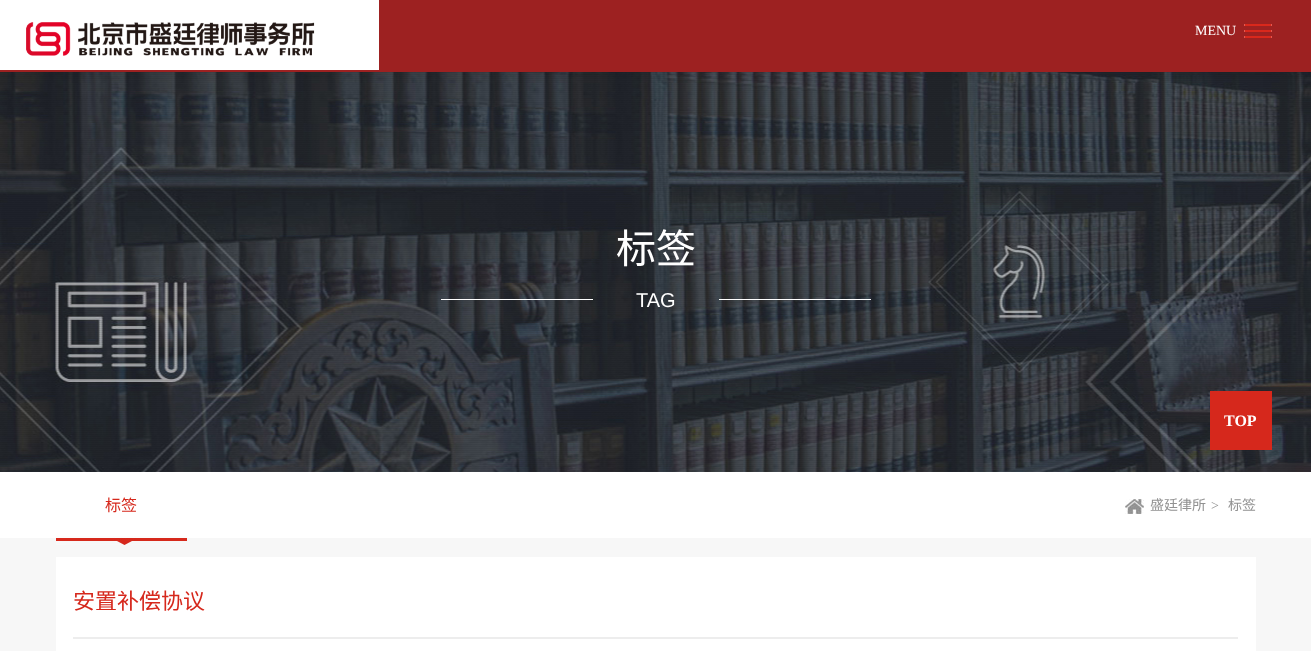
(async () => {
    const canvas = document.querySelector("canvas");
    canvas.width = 1311;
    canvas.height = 651;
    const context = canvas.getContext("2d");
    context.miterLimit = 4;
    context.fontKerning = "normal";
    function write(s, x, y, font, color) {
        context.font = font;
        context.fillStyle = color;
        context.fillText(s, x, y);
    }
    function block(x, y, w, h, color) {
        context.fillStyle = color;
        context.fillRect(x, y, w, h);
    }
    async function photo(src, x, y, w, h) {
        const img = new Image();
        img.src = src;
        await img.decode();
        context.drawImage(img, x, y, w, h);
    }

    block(0, 0, 1311, 651, "rgb(255, 255, 255)");
    block(0, 0, 1311, 72, "rgb(157, 33, 33)");
    block(0, 0, 379, 70, "rgb(255, 255, 255)");
    await photo("media/1.png", 26, 22, 289, 34);
    await photo("media/2.png", 1244, 24, 28, 14);
    write("MENU", 1195, 35, "14px Liberation Serif", "rgb(255, 255, 255)");
    await photo("media/3.png", 0, 72, 1311, 400);
    write("标签", 616, 263, "40px Noto Sans CJK SC", "rgb(255, 255, 255)");
    await photo("media/4.png", 441, 299, 430, 1);
    write("TAG", 636, 307, "20px Liberation Sans", "rgb(255, 255, 255)");
    block(1210, 391, 62, 59, "rgb(214, 40, 28)");
    write("TOP", 1224, 426, "bold 16px Liberation Serif", "rgb(255, 255, 255)");
    block(0, 538, 1311, 113, "rgb(247, 247, 247)");
    await photo("media/5.png", 56, 536, 131, 9);
    write("标签", 105, 511, "16px Noto Sans CJK SC", "rgb(214, 40, 28)");
    await photo("media/6.png", 1125, 499, 19, 15);
    write("盛廷律所", 1150, 510, "14px Noto Sans CJK SC", "rgb(145, 145, 145)");
    write(">", 1211, 510, "14px Liberation Serif", "rgb(145, 145, 145)");
    write("标签", 1228, 510, "14px Noto Sans CJK SC", "rgb(145, 145, 145)");
    block(56, 557, 1200, 94, "rgb(255, 255, 255)");
    block(73, 637, 1165, 2, "rgb(237, 237, 237)");
    write("安置补偿协议", 73, 609, "22px Noto Sans CJK SC", "rgb(214, 40, 28)");
})();
